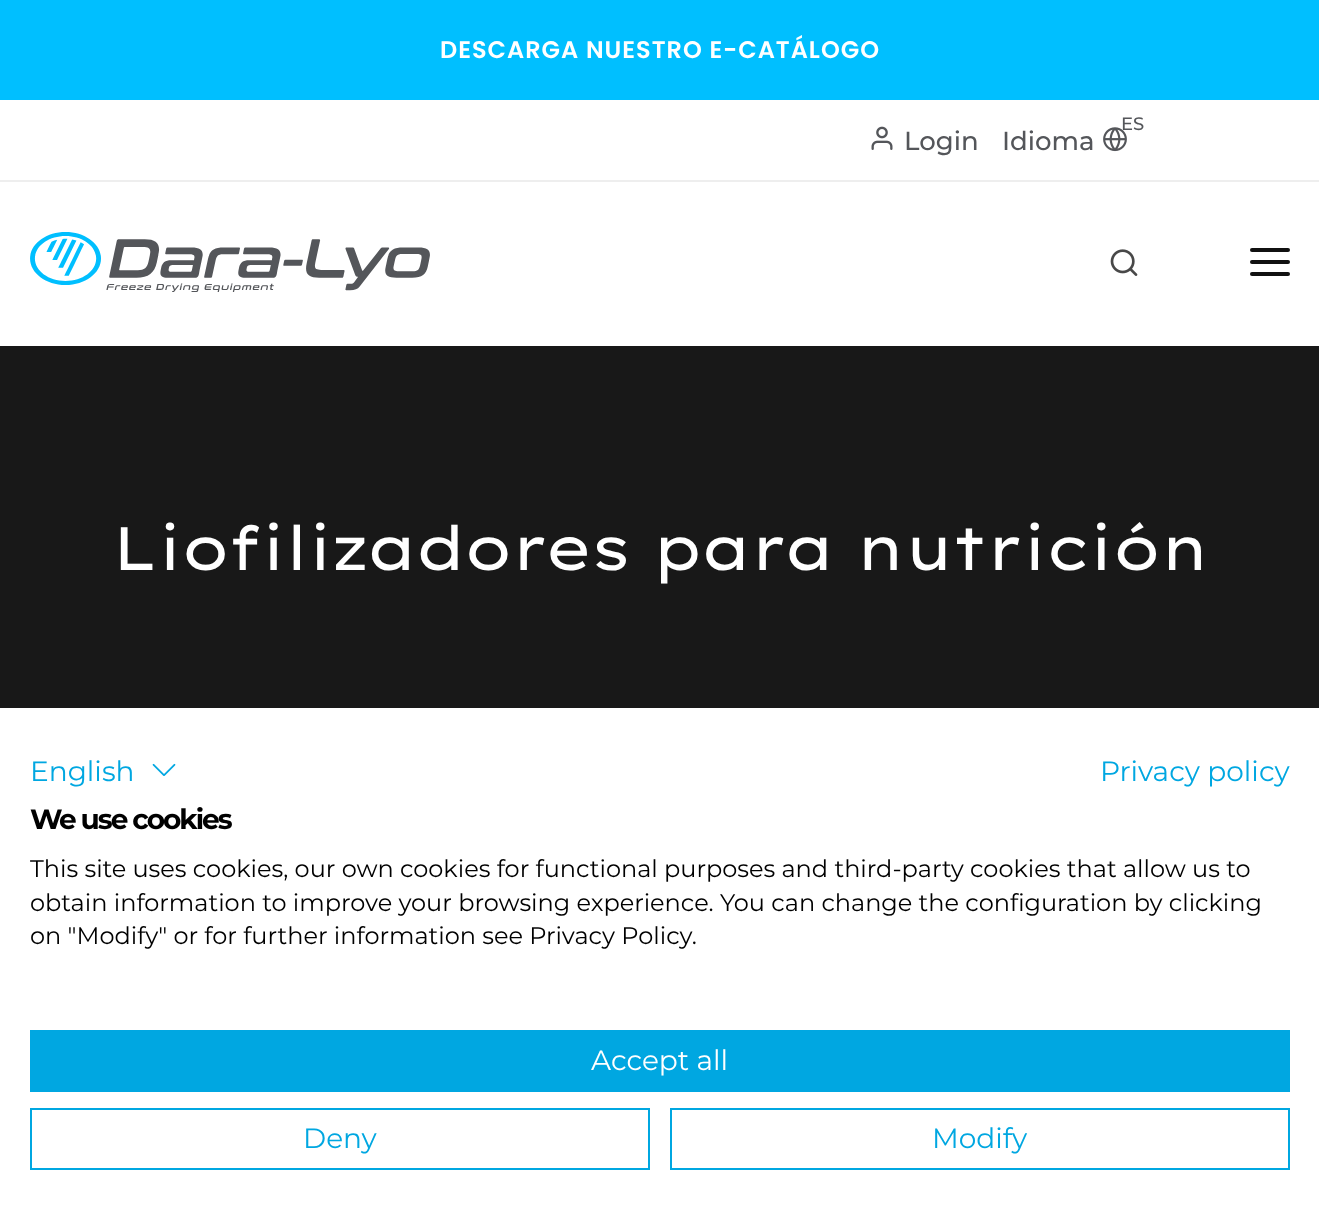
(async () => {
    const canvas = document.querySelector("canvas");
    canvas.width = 1319;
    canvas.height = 1224;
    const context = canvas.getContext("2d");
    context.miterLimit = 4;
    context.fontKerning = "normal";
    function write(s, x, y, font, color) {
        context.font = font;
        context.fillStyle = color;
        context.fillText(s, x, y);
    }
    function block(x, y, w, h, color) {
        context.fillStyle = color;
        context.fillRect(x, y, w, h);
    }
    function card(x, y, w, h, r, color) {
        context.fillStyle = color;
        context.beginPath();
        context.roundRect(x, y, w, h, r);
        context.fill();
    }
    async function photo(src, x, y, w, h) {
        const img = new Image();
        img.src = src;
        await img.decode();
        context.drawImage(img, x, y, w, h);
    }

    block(0, 0, 1319, 1224, "rgb(255, 255, 255)");
    block(0, 0, 1319, 100, "rgb(0, 191, 255)");
    context.letterSpacing = "1px";
    write("DESCARGA NUESTRO E-CATÁLOGO", 440, 58, "600 24px Poppins", "rgb(255, 255, 255)");
    block(0, 180, 1319, 2, "rgb(238, 238, 238)");
    await photo("media/1.png", 871, 126, 22, 24);
    context.letterSpacing = "0px";
    write("Login", 904, 150, "500 26px Montserrat", "rgb(84, 86, 90)");
    await photo("media/2.png", 1103, 127, 24, 25);
    write("ES", 1121, 130, "500 18px Montserrat", "rgb(84, 86, 90)");
    write("Idioma", 1002, 150, "500 26px Montserrat", "rgb(84, 86, 90)");
    await photo("media/3.png", 30, 232, 400, 60);
    await photo("media/4.png", 1110, 249, 28, 27);
    card(1250, 260, 40, 4, 2, "rgb(17, 17, 17)");
    card(1250, 248, 40, 4, 2, "rgb(17, 17, 17)");
    card(1250, 272, 40, 4, 2, "rgb(17, 17, 17)");
    block(0, 346, 1319, 362, "rgb(24, 24, 24)");
    context.letterSpacing = "-2px";
    write("Liofilizadores para nutrición", 112, 570, "61.25px Lexend Giga", "rgb(255, 255, 255)");
    context.letterSpacing = "0px";
    write("English", 30, 781, "28px Montserrat", "rgb(0, 167, 225)");
    await photo("media/5.png", 152, 763, 24, 13);
    write("Privacy policy", 1100, 781, "28px Montserrat", "rgb(0, 167, 225)");
    context.letterSpacing = "-2px";
    write("We use cookies", 30, 829, "bold 28px Montserrat", "rgb(0, 0, 0)");
    context.letterSpacing = "0px";
    write("This site uses cookies, our own cookies for functional purposes and third-party cookies that allow us to", 30, 877, "24px Montserrat", "rgb(0, 0, 0)");
    write("obtain information to improve your browsing experience. You can change the configuration by clicking", 30, 911, "24px Montserrat", "rgb(0, 0, 0)");
    write("on \"Modify\" or for further information see Privacy Policy.", 30, 944, "24px Montserrat", "rgb(0, 0, 0)");
    block(30, 1030, 1260, 62, "rgb(0, 167, 225)");
    write("Accept all", 591, 1070, "28px Montserrat", "rgb(255, 255, 255)");
    context.strokeStyle = "rgb(0, 167, 225)";
    context.lineWidth = 2;
    context.strokeRect(31, 1109, 618, 60);
    write("Deny", 303, 1148, "28px Montserrat", "rgb(0, 167, 225)");
    context.strokeRect(671, 1109, 618, 60);
    write("Modify", 932, 1148, "28px Montserrat", "rgb(0, 167, 225)");
})();
